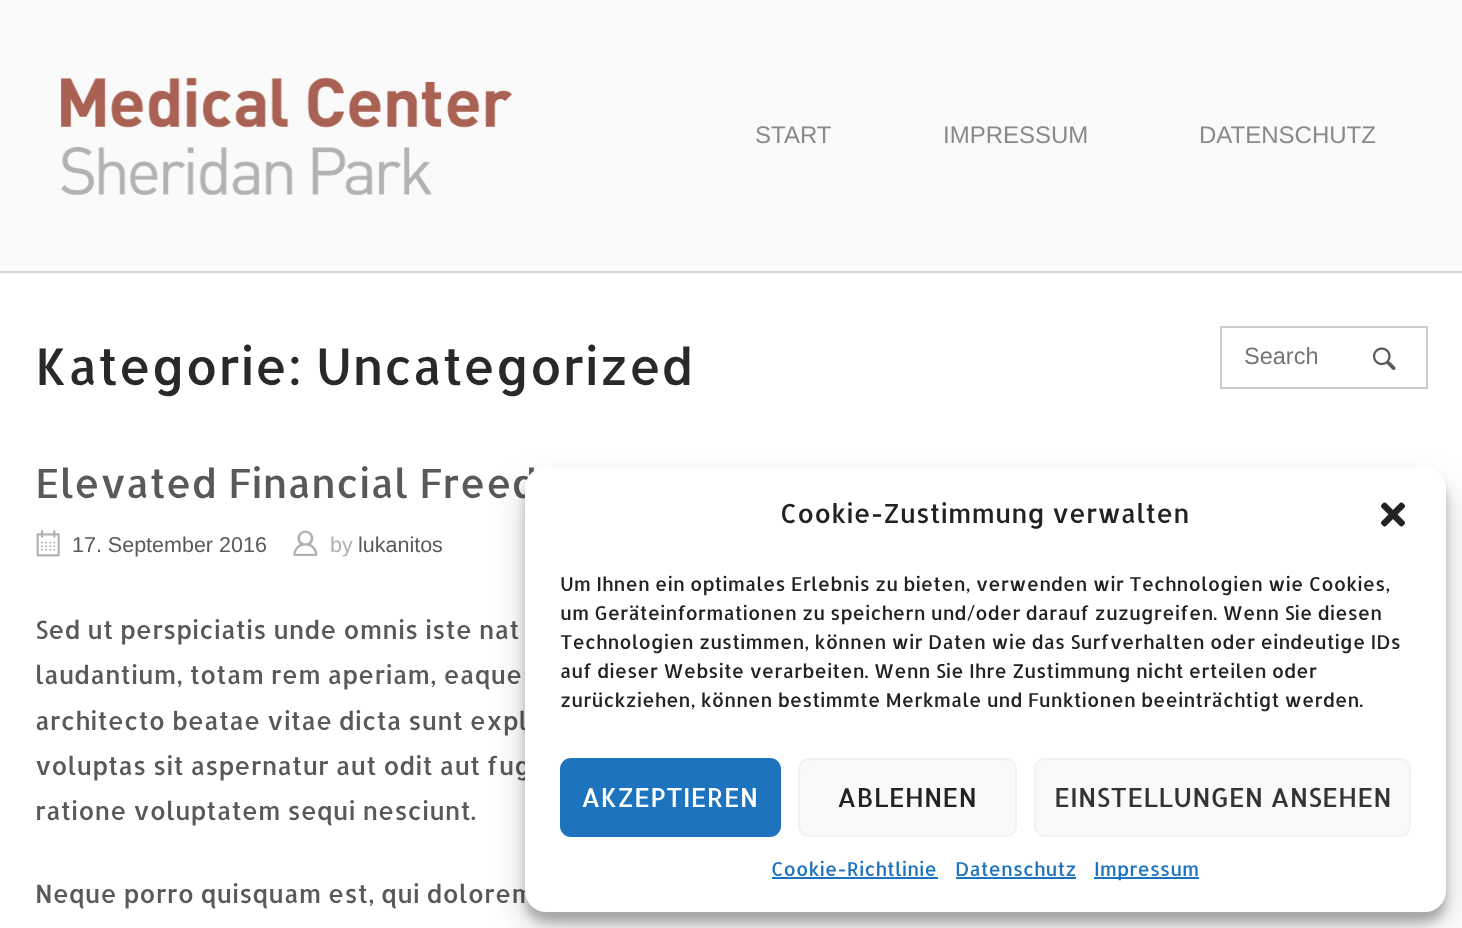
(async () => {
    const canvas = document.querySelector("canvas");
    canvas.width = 1462;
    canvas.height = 928;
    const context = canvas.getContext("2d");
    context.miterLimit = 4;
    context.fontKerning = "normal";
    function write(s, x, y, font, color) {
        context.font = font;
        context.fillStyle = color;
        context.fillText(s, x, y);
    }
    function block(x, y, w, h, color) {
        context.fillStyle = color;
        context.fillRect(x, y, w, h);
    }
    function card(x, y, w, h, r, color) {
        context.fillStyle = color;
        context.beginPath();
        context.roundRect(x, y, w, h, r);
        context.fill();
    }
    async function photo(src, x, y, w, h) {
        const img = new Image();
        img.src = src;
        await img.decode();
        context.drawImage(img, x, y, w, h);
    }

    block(0, 0, 1462, 928, "rgb(255, 255, 255)");
    block(0, 0, 1462, 271, "rgb(250, 250, 250)");
    block(0, 271, 1462, 2, "rgb(212, 212, 212)");
    await photo("media/1.png", 61, 77, 452, 118);
    write("START", 755, 143, "24px Liberation Sans", "rgb(137, 137, 137)");
    write("IMPRESSUM", 943, 143, "24px Liberation Sans", "rgb(137, 137, 137)");
    write("DATENSCHUTZ", 1199, 143, "24px Liberation Sans", "rgb(137, 137, 137)");
    write("Kategorie: Uncategorized", 35, 385, "50.75px Allerta", "rgb(41, 41, 41)");
    write("Elevated Financial Freed", 35, 498, "40.25px Allerta", "rgb(89, 89, 89)");
    await photo("media/2.png", 36, 530, 24, 27);
    write("17. September 2016", 72, 552, "21.5px Liberation Sans", "rgb(89, 89, 89)");
    await photo("media/3.png", 293, 530, 25, 26);
    write("by", 330, 552, "21.5px Liberation Sans", "rgb(176, 176, 176)");
    write("lukanitos", 358, 552, "21.5px Liberation Sans", "rgb(89, 89, 89)");
    write("Sed ut perspiciatis unde omnis iste nat", 35, 639, "25.25px Allerta", "rgb(89, 89, 89)");
    write("laudantium, totam rem aperiam, eaque", 35, 684, "25.25px Allerta", "rgb(89, 89, 89)");
    write("architecto beatae vitae dicta sunt expl", 35, 730, "25.25px Allerta", "rgb(89, 89, 89)");
    write("voluptas sit aspernatur aut odit aut fug", 35, 775, "25.25px Allerta", "rgb(89, 89, 89)");
    write("ratione voluptatem sequi nesciunt.", 35, 820, "25.25px Allerta", "rgb(89, 89, 89)");
    write("Neque porro quisquam est, qui dolorem", 35, 903, "25.25px Allerta", "rgb(89, 89, 89)");
    context.strokeStyle = "rgb(204, 204, 204)";
    context.lineWidth = 2;
    context.strokeRect(1221, 327, 206, 61);
    write("Search", 1244, 364, "23.5px Liberation Sans", "rgb(117, 117, 117)");
    await photo("media/4.png", 1373, 347, 23, 23);
    context.fillStyle = "rgba(0, 0, 0, 0.23)";
    context.filter = "blur(5px)";
    context.beginPath();
    context.roundRect(525, 478, 921, 444, 21);
    context.fill();
    context.filter = "none";
    context.fillStyle = "rgba(0, 0, 0, 0.19)";
    context.filter = "blur(17.5px)";
    context.beginPath();
    context.roundRect(525, 485, 921, 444, 21);
    context.fill();
    context.filter = "none";
    card(525, 467, 921, 445, 21, "rgb(255, 255, 255)");
    write("Cookie-Zustimmung verwalten", 780, 523, "26.25px Allerta", "rgb(34, 34, 34)");
    await photo("media/5.png", 1381, 502, 24, 25);
    write("Um Ihnen ein optimales Erlebnis zu bieten, verwenden wir Technologien wie Cookies,", 560, 591, "19.25px Allerta", "rgb(34, 34, 34)");
    write("um Geräteinformationen zu speichern und/oder darauf zuzugreifen. Wenn Sie diesen", 560, 620, "19.25px Allerta", "rgb(34, 34, 34)");
    write("Technologien zustimmen, können wir Daten wie das Surfverhalten oder eindeutige IDs", 560, 649, "19.25px Allerta", "rgb(34, 34, 34)");
    write("auf dieser Website verarbeiten. Wenn Sie Ihre Zustimmung nicht erteilen oder", 560, 678, "19.25px Allerta", "rgb(34, 34, 34)");
    write("zurückziehen, können bestimmte Merkmale und Funktionen beeinträchtigt werden.", 560, 707, "19.25px Allerta", "rgb(34, 34, 34)");
    context.fillStyle = "rgb(30, 115, 190)";
    context.beginPath();
    context.roundRect(561, 759, 219, 77, 10);
    context.fill();
    context.strokeStyle = "rgb(30, 115, 190)";
    context.stroke();
    write("AKZEPTIEREN", 581, 807, "26.25px Allerta", "rgb(255, 255, 255)");
    context.fillStyle = "rgb(249, 249, 249)";
    context.beginPath();
    context.roundRect(799, 759, 217, 77, 10);
    context.fill();
    context.strokeStyle = "rgb(242, 242, 242)";
    context.stroke();
    write("ABLEHNEN", 837, 807, "26.25px Allerta", "rgb(34, 34, 34)");
    context.fillStyle = "rgb(249, 249, 249)";
    context.beginPath();
    context.roundRect(1035, 759, 375, 77, 10);
    context.fill();
    context.stroke();
    write("EINSTELLUNGEN ANSEHEN", 1054, 807, "26.25px Allerta", "rgb(51, 51, 51)");
    write("Cookie-Richtlinie", 771, 876, "19.25px Allerta", "rgb(30, 115, 190)");
    block(772, 877, 166, 2, "rgb(30, 115, 190)");
    write("Datenschutz", 955, 876, "19.25px Allerta", "rgb(30, 115, 190)");
    block(956, 877, 120, 2, "rgb(30, 115, 190)");
    block(1094, 877, 105, 2, "rgb(30, 115, 190)");
    write("Impressum", 1094, 876, "19.25px Allerta", "rgb(30, 115, 190)");
})();
